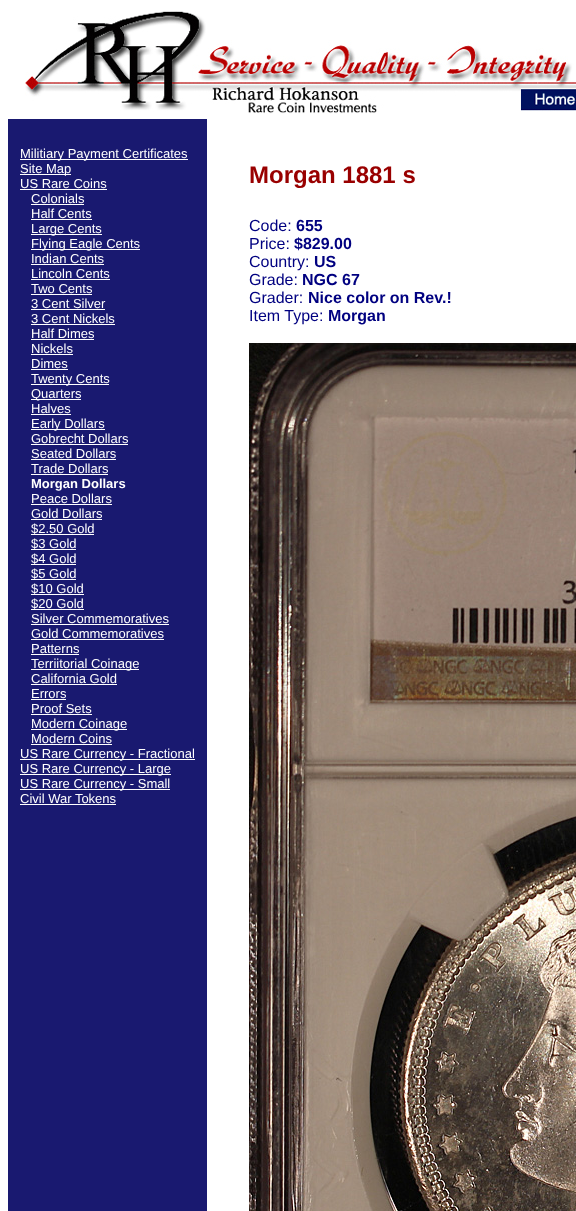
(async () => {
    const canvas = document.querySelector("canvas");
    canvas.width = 576;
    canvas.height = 1211;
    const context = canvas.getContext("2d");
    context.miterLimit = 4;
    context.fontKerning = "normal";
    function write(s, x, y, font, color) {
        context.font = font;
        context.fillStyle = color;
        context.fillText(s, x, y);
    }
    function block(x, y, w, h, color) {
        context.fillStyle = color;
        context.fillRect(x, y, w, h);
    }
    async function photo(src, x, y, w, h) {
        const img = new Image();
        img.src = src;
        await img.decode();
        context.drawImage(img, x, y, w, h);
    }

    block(0, 0, 576, 1211, "rgb(255, 255, 255)");
    await photo("media/1.png", 25, 11, 551, 103);
    block(8, 119, 199, 1092, "rgb(25, 25, 112)");
    block(20, 159, 168, 1, "rgb(255, 255, 255)");
    write("Militiary Payment Certificates", 20, 158, "13px Liberation Sans", "rgb(255, 255, 255)");
    block(20, 174, 51, 1, "rgb(255, 255, 255)");
    write("Site Map", 20, 173, "13px Liberation Sans", "rgb(255, 255, 255)");
    write("US Rare Coins", 20, 188, "13px Liberation Sans", "rgb(255, 255, 255)");
    block(20, 189, 87, 1, "rgb(255, 255, 255)");
    write("Colonials", 31, 203, "13px Liberation Sans", "rgb(255, 255, 255)");
    block(31, 204, 53, 1, "rgb(255, 255, 255)");
    write("Half Cents", 31, 218, "13px Liberation Sans", "rgb(255, 255, 255)");
    block(31, 219, 61, 1, "rgb(255, 255, 255)");
    block(31, 234, 71, 1, "rgb(255, 255, 255)");
    write("Large Cents", 31, 233, "13px Liberation Sans", "rgb(255, 255, 255)");
    block(31, 249, 109, 1, "rgb(255, 255, 255)");
    write("Flying Eagle Cents", 31, 248, "13px Liberation Sans", "rgb(255, 255, 255)");
    write("Indian Cents", 31, 263, "13px Liberation Sans", "rgb(255, 255, 255)");
    block(31, 264, 73, 1, "rgb(255, 255, 255)");
    write("Lincoln Cents", 31, 278, "13px Liberation Sans", "rgb(255, 255, 255)");
    block(31, 279, 79, 1, "rgb(255, 255, 255)");
    write("Two Cents", 31, 293, "13px Liberation Sans", "rgb(255, 255, 255)");
    block(31, 294, 61, 1, "rgb(255, 255, 255)");
    write("3 Cent Silver", 31, 308, "13px Liberation Sans", "rgb(255, 255, 255)");
    block(31, 309, 74, 1, "rgb(255, 255, 255)");
    write("3 Cent Nickels", 31, 323, "13px Liberation Sans", "rgb(255, 255, 255)");
    block(31, 324, 84, 1, "rgb(255, 255, 255)");
    write("Half Dimes", 31, 338, "13px Liberation Sans", "rgb(255, 255, 255)");
    block(31, 339, 63, 1, "rgb(255, 255, 255)");
    write("Nickels", 31, 353, "13px Liberation Sans", "rgb(255, 255, 255)");
    block(31, 354, 42, 1, "rgb(255, 255, 255)");
    write("Dimes", 31, 368, "13px Liberation Sans", "rgb(255, 255, 255)");
    block(31, 369, 37, 1, "rgb(255, 255, 255)");
    block(31, 384, 78, 1, "rgb(255, 255, 255)");
    write("Twenty Cents", 31, 383, "13px Liberation Sans", "rgb(255, 255, 255)");
    block(31, 399, 50, 1, "rgb(255, 255, 255)");
    write("Quarters", 31, 398, "13px Liberation Sans", "rgb(255, 255, 255)");
    write("Halves", 31, 413, "13px Liberation Sans", "rgb(255, 255, 255)");
    block(31, 414, 40, 1, "rgb(255, 255, 255)");
    block(31, 429, 74, 1, "rgb(255, 255, 255)");
    write("Early Dollars", 31, 428, "13px Liberation Sans", "rgb(255, 255, 255)");
    write("Gobrecht Dollars", 31, 443, "13px Liberation Sans", "rgb(255, 255, 255)");
    block(31, 444, 97, 1, "rgb(255, 255, 255)");
    write("Seated Dollars", 31, 458, "13px Liberation Sans", "rgb(255, 255, 255)");
    block(31, 459, 85, 1, "rgb(255, 255, 255)");
    write("Trade Dollars", 31, 473, "13px Liberation Sans", "rgb(255, 255, 255)");
    block(31, 474, 77, 1, "rgb(255, 255, 255)");
    write("Morgan Dollars", 31, 488, "bold 13px Liberation Sans", "rgb(255, 255, 255)");
    write("Peace Dollars", 31, 503, "13px Liberation Sans", "rgb(255, 255, 255)");
    block(31, 504, 81, 1, "rgb(255, 255, 255)");
    write("Gold Dollars", 31, 518, "13px Liberation Sans", "rgb(255, 255, 255)");
    block(31, 519, 71, 1, "rgb(255, 255, 255)");
    write("$2.50 Gold", 31, 533, "13px Liberation Sans", "rgb(255, 255, 255)");
    block(31, 534, 63, 1, "rgb(255, 255, 255)");
    write("$3 Gold", 31, 548, "13px Liberation Sans", "rgb(255, 255, 255)");
    block(31, 549, 45, 1, "rgb(255, 255, 255)");
    write("$4 Gold", 31, 563, "13px Liberation Sans", "rgb(255, 255, 255)");
    block(31, 564, 45, 1, "rgb(255, 255, 255)");
    write("$5 Gold", 31, 578, "13px Liberation Sans", "rgb(255, 255, 255)");
    block(31, 579, 45, 1, "rgb(255, 255, 255)");
    write("$10 Gold", 31, 593, "13px Liberation Sans", "rgb(255, 255, 255)");
    block(31, 594, 53, 1, "rgb(255, 255, 255)");
    write("$20 Gold", 31, 608, "13px Liberation Sans", "rgb(255, 255, 255)");
    block(31, 609, 53, 1, "rgb(255, 255, 255)");
    write("Silver Commemoratives", 31, 623, "13px Liberation Sans", "rgb(255, 255, 255)");
    block(31, 624, 138, 1, "rgb(255, 255, 255)");
    write("Gold Commemoratives", 31, 638, "13px Liberation Sans", "rgb(255, 255, 255)");
    block(31, 639, 133, 1, "rgb(255, 255, 255)");
    write("Patterns", 31, 653, "13px Liberation Sans", "rgb(255, 255, 255)");
    block(31, 654, 48, 1, "rgb(255, 255, 255)");
    block(31, 669, 108, 1, "rgb(255, 255, 255)");
    write("Terriitorial Coinage", 31, 668, "13px Liberation Sans", "rgb(255, 255, 255)");
    write("California Gold", 31, 683, "13px Liberation Sans", "rgb(255, 255, 255)");
    block(31, 684, 86, 1, "rgb(255, 255, 255)");
    write("Errors", 31, 698, "13px Liberation Sans", "rgb(255, 255, 255)");
    block(31, 699, 35, 1, "rgb(255, 255, 255)");
    write("Proof Sets", 31, 713, "13px Liberation Sans", "rgb(255, 255, 255)");
    block(31, 714, 61, 1, "rgb(255, 255, 255)");
    block(31, 729, 96, 1, "rgb(255, 255, 255)");
    write("Modern Coinage", 31, 728, "13px Liberation Sans", "rgb(255, 255, 255)");
    write("Modern Coins", 31, 743, "13px Liberation Sans", "rgb(255, 255, 255)");
    block(31, 744, 81, 1, "rgb(255, 255, 255)");
    block(20, 759, 175, 1, "rgb(255, 255, 255)");
    write("US Rare Currency - Fractional", 20, 758, "13px Liberation Sans", "rgb(255, 255, 255)");
    block(20, 774, 151, 1, "rgb(255, 255, 255)");
    write("US Rare Currency - Large", 20, 773, "13px Liberation Sans", "rgb(255, 255, 255)");
    block(20, 789, 150, 1, "rgb(255, 255, 255)");
    write("US Rare Currency - Small", 20, 788, "13px Liberation Sans", "rgb(255, 255, 255)");
    write("Civil War Tokens", 20, 803, "13px Liberation Sans", "rgb(255, 255, 255)");
    block(20, 804, 96, 1, "rgb(255, 255, 255)");
    write("Morgan 1881 s", 249, 183, "bold 24px Liberation Sans", "rgb(153, 0, 0)");
    write("Code:", 249, 231, "16px Liberation Sans", "rgb(0, 0, 128)");
    write("655", 296, 231, "bold 16px Liberation Sans", "rgb(0, 0, 128)");
    write("Price:", 249, 249, "16px Liberation Sans", "rgb(0, 0, 128)");
    write("$829.00", 294, 249, "bold 16px Liberation Sans", "rgb(0, 0, 128)");
    write("Country:", 249, 267, "16px Liberation Sans", "rgb(0, 0, 128)");
    write("US", 314, 267, "bold 16px Liberation Sans", "rgb(0, 0, 128)");
    write("Grade:", 249, 285, "16px Liberation Sans", "rgb(0, 0, 128)");
    write("NGC 67", 302, 285, "bold 16px Liberation Sans", "rgb(0, 0, 128)");
    write("Grader:", 249, 303, "16px Liberation Sans", "rgb(0, 0, 128)");
    write("Nice color on Rev.!", 308, 303, "bold 16px Liberation Sans", "rgb(0, 0, 128)");
    write("Item Type:", 249, 321, "16px Liberation Sans", "rgb(0, 0, 128)");
    write("Morgan", 328, 321, "bold 16px Liberation Sans", "rgb(0, 0, 128)");
    await photo("media/2.png", 249, 343, 327, 868);
})();
